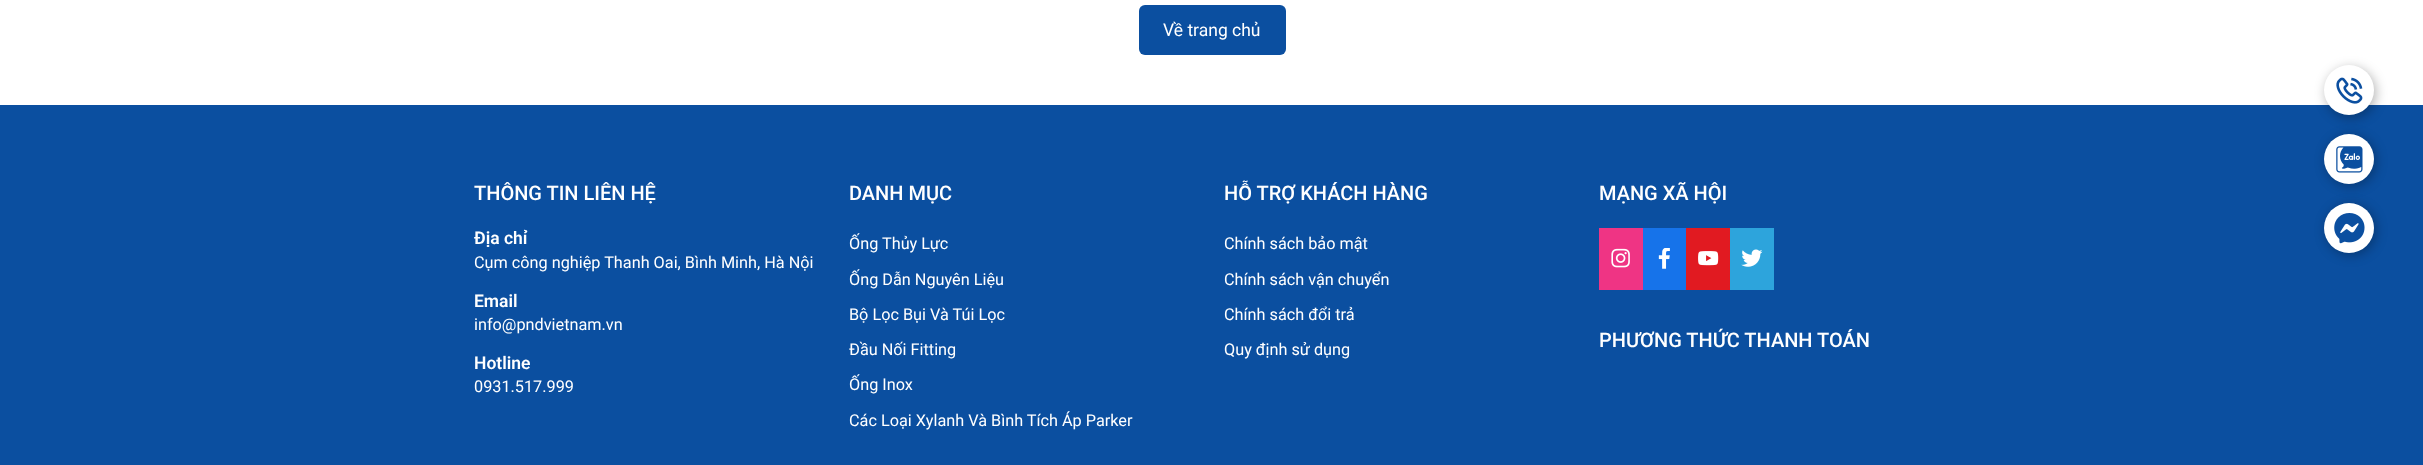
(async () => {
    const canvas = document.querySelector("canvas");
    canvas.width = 2423;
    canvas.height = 465;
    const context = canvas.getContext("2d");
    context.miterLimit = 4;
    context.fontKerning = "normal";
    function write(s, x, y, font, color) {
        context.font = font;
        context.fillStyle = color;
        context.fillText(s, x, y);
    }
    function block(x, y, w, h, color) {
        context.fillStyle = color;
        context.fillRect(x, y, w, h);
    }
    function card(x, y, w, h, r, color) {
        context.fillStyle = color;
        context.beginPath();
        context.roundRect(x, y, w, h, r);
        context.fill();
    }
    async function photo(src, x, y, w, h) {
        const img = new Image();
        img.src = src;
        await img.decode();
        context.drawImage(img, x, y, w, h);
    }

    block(0, 0, 2423, 465, "rgb(255, 255, 255)");
    card(1139, 5, 147, 50, 6, "rgb(11, 79, 160)");
    write("Về trang chủ", 1163, 36, "17.5px Roboto", "rgb(255, 255, 255)");
    block(0, 105, 2423, 360, "rgb(11, 79, 160)");
    write("THÔNG TIN LIÊN HỆ", 474, 200, "500 20px Roboto", "rgb(255, 255, 255)");
    write("Địa chỉ", 474, 244, "600 17.5px Roboto", "rgb(255, 255, 255)");
    write("Cụm công nghiệp Thanh Oai, Bình Minh, Hà Nội", 474, 268, "16.25px Roboto", "rgb(255, 255, 255)");
    write("Email", 474, 307, "600 17.5px Roboto", "rgb(255, 255, 255)");
    write("info@pndvietnam.vn", 474, 330, "16.25px Roboto", "rgb(255, 255, 255)");
    write("Hotline", 474, 369, "600 17.5px Roboto", "rgb(255, 255, 255)");
    write("0931.517.999", 474, 392, "16.25px Roboto", "rgb(255, 255, 255)");
    write("DANH MỤC", 849, 200, "500 20px Roboto", "rgb(255, 255, 255)");
    write("Ống Thủy Lực", 849, 249, "16.25px Roboto", "rgb(255, 255, 255)");
    write("Ống Dẫn Nguyên Liệu", 849, 285, "16.25px Roboto", "rgb(255, 255, 255)");
    write("Bộ Lọc Bụi Và Túi Lọc", 849, 320, "16.25px Roboto", "rgb(255, 255, 255)");
    write("Đầu Nối Fitting", 849, 355, "16.25px Roboto", "rgb(255, 255, 255)");
    write("Ống Inox", 849, 390, "16.25px Roboto", "rgb(255, 255, 255)");
    write("Các Loại Xylanh Và Bình Tích Áp Parker", 849, 426, "16.25px Roboto", "rgb(255, 255, 255)");
    write("HỖ TRỢ KHÁCH HÀNG", 1224, 200, "500 20px Roboto", "rgb(255, 255, 255)");
    write("Chính sách bảo mật", 1224, 249, "16.25px Roboto", "rgb(255, 255, 255)");
    write("Chính sách vận chuyển", 1224, 285, "16.25px Roboto", "rgb(255, 255, 255)");
    write("Chính sách đổi trả", 1224, 320, "16.25px Roboto", "rgb(255, 255, 255)");
    write("Quy định sử dụng", 1224, 355, "16.25px Roboto", "rgb(255, 255, 255)");
    write("MẠNG XÃ HỘI", 1599, 200, "500 20px Roboto", "rgb(255, 255, 255)");
    block(1599, 228, 44, 62, "rgb(239, 52, 132)");
    await photo("media/1.png", 1611, 248, 19, 20);
    block(1643, 228, 43, 62, "rgb(22, 115, 234)");
    await photo("media/2.png", 1658, 248, 12, 21);
    block(1686, 228, 44, 62, "rgb(225, 26, 33)");
    await photo("media/3.png", 1698, 251, 21, 15);
    block(1730, 228, 44, 62, "rgb(45, 164, 220)");
    await photo("media/4.png", 1741, 249, 22, 18);
    write("PHƯƠNG THỨC THANH TOÁN", 1599, 347, "500 20px Roboto", "rgb(255, 255, 255)");
    context.fillStyle = "rgba(0, 0, 0, 0.3)";
    context.filter = "blur(6px)";
    context.beginPath();
    context.roundRect(2326, 68, 50, 50, 25);
    context.fill();
    context.filter = "none";
    context.fillStyle = "rgb(255, 255, 255)";
    context.beginPath();
    context.arc(2349, 90, 25, 0, Math.PI * 2);
    context.fill();
    await photo("media/5.png", 2336, 77, 27, 27);
    context.fillStyle = "rgba(0, 0, 0, 0.3)";
    context.filter = "blur(6px)";
    context.beginPath();
    context.roundRect(2326, 136, 50, 50, 25);
    context.fill();
    context.filter = "none";
    context.fillStyle = "rgb(255, 255, 255)";
    context.beginPath();
    context.arc(2349, 159, 25, 0, Math.PI * 2);
    context.fill();
    await photo("media/6.png", 2336, 146, 27, 27);
    context.fillStyle = "rgba(0, 0, 0, 0.3)";
    context.filter = "blur(6px)";
    context.beginPath();
    context.roundRect(2326, 205, 50, 50, 25);
    context.fill();
    context.filter = "none";
    context.fillStyle = "rgb(255, 255, 255)";
    context.beginPath();
    context.arc(2349, 228, 25, 0, Math.PI * 2);
    context.fill();
    await photo("media/7.png", 2334, 213, 31, 31);
})();
